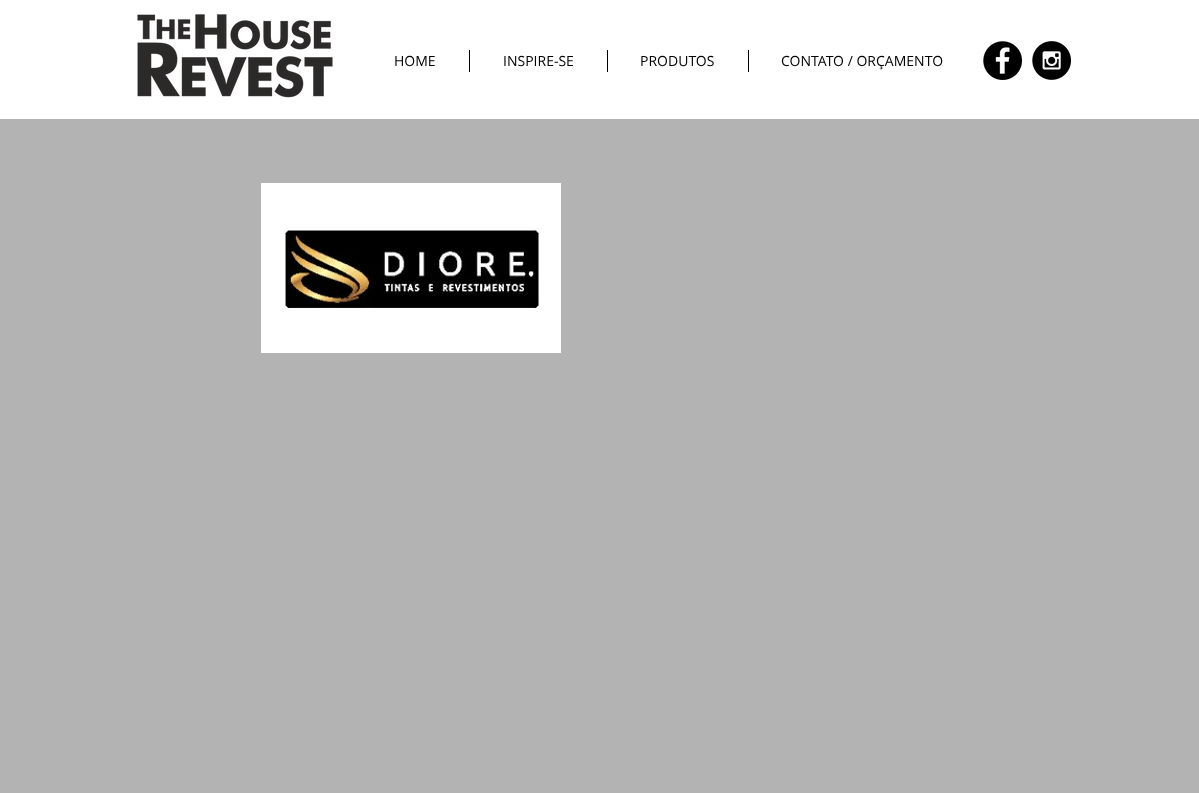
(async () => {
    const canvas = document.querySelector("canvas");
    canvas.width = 1199;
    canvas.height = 793;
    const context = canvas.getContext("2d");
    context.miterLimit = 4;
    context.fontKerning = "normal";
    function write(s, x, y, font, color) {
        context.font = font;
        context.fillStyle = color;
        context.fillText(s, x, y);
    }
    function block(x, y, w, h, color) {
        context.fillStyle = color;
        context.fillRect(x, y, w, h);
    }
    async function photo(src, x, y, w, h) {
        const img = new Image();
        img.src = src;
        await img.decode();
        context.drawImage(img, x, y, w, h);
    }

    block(0, 0, 1199, 793, "rgb(255, 255, 255)");
    await photo("media/1.png", 137, 14, 196, 84);
    write("HOME", 394, 66, "14px Open Sans", "rgb(0, 0, 0)");
    block(469, 50, 1, 22, "rgb(0, 0, 0)");
    write("INSPIRE-SE", 503, 66, "14px Open Sans", "rgb(0, 0, 0)");
    block(607, 50, 1, 22, "rgb(0, 0, 0)");
    write("PRODUTOS", 640, 66, "14px Open Sans", "rgb(0, 0, 0)");
    block(748, 50, 1, 22, "rgb(0, 0, 0)");
    write("CONTATO / ORÇAMENTO", 781, 66, "14px Open Sans", "rgb(0, 0, 0)");
    await photo("media/2.png", 983, 41, 39, 39);
    await photo("media/3.png", 1032, 41, 39, 39);
    block(0, 119, 1199, 674, "rgb(179, 179, 179)");
    await photo("media/4.png", 261, 183, 300, 170);
})();
